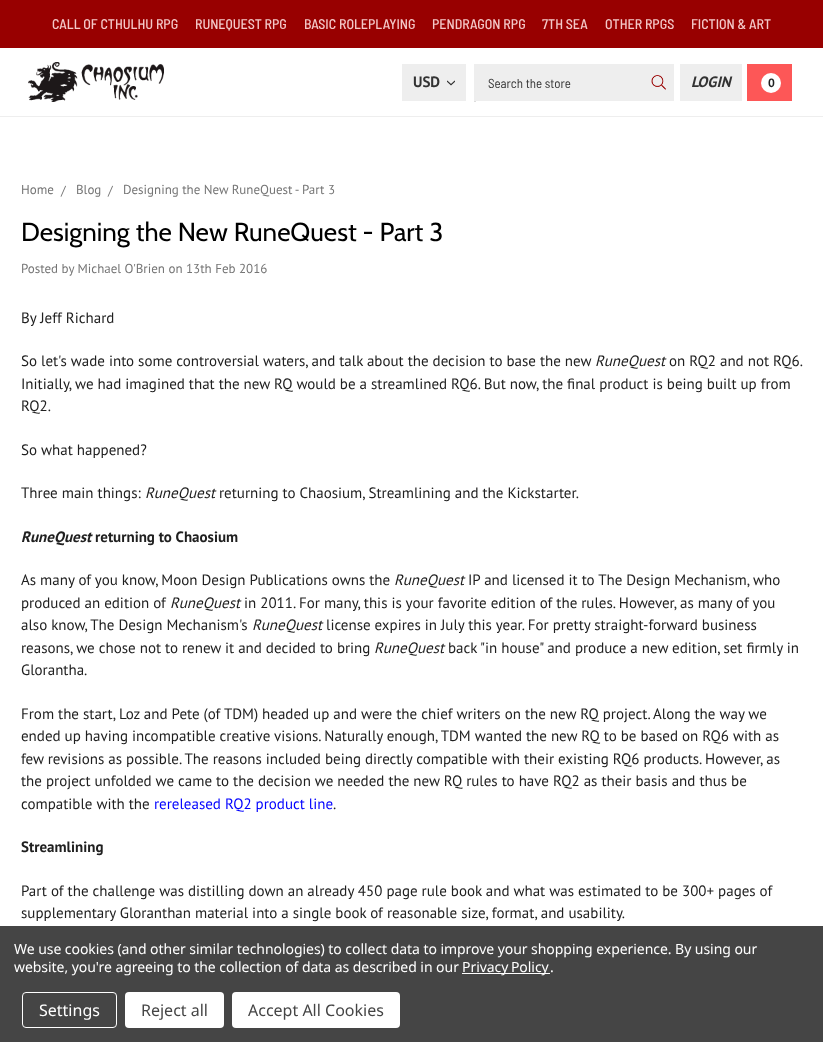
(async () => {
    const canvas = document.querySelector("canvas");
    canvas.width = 823;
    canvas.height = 1042;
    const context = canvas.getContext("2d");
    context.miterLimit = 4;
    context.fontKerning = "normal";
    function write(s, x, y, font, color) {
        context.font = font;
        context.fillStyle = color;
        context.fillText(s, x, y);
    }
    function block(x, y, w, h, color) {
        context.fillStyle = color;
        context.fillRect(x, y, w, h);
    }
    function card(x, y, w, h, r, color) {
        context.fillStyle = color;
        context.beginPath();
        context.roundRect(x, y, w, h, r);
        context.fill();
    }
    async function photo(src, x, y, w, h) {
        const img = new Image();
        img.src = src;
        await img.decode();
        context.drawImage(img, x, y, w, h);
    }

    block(0, 0, 823, 1042, "rgb(255, 255, 255)");
    block(0, 116, 823, 1, "rgb(238, 238, 238)");
    block(0, 0, 823, 48, "rgb(152, 0, 0)");
    write("CALL OF CTHULHU RPG", 52, 29, "500 14px Barlow Semi Condensed", "rgb(244, 200, 200)");
    write("RUNEQUEST RPG", 195, 29, "500 14px Barlow Semi Condensed", "rgb(244, 200, 200)");
    write("BASIC ROLEPLAYING", 304, 29, "500 14px Barlow Semi Condensed", "rgb(244, 200, 200)");
    write("PENDRAGON RPG", 432, 29, "500 14px Barlow Semi Condensed", "rgb(244, 200, 200)");
    write("7TH SEA", 542, 29, "500 14px Barlow Semi Condensed", "rgb(244, 200, 200)");
    write("OTHER RPGS", 605, 29, "500 14px Barlow Semi Condensed", "rgb(244, 200, 200)");
    write("FICTION & ART", 691, 29, "500 14px Barlow Semi Condensed", "rgb(244, 200, 200)");
    await photo("media/1.png", 28, 62, 136, 40);
    block(402, 64, 64, 37, "rgb(238, 238, 238)");
    write("USD", 413, 87, "bold 15px PT Sans", "rgb(51, 51, 51)");
    await photo("media/2.png", 447, 80, 8, 6);
    block(474, 64, 200, 37, "rgb(238, 238, 238)");
    await photo("media/3.png", 651, 75, 15, 15);
    write("Search the store", 488, 88, "13px Barlow Semi Condensed", "rgb(51, 51, 51)");
    block(474, 101, 2, 1, "rgb(221, 221, 221)");
    block(680, 64, 62, 37, "rgb(238, 238, 238)");
    write("LOGIN", 691, 87, "italic bold 15px PT Sans", "rgb(51, 51, 51)");
    block(747, 64, 45, 37, "rgb(253, 87, 87)");
    context.fillStyle = "rgb(255, 255, 255)";
    context.beginPath();
    context.arc(771, 83, 10, 0, Math.PI * 2);
    context.fill();
    write("0", 768, 87, "bold 12px PT Sans", "rgb(32, 32, 32)");
    write("Home", 21, 194, "13px PT Sans", "rgb(117, 117, 117)");
    write("/", 61, 195, "13px PT Sans", "rgb(117, 117, 117)");
    write("Blog", 76, 194, "13px PT Sans", "rgb(117, 117, 117)");
    write("/", 108, 195, "13px PT Sans", "rgb(117, 117, 117)");
    write("Designing the New RuneQuest - Part 3", 123, 194, "13px PT Sans", "rgb(117, 117, 117)");
    write("Designing the New RuneQuest - Part 3", 21, 241, "26px Cabin", "rgb(0, 0, 0)");
    write("Posted by Michael O'Brien on 13th Feb 2016", 21, 273, "13px PT Sans", "rgb(117, 117, 117)");
    write("By Jeff Richard", 21, 323, "15px PT Sans", "rgb(32, 32, 32)");
    write("So let's wade into some controversial waters, and talk about the decision to base the new", 21, 366, "15px PT Sans", "rgb(32, 32, 32)");
    write("RuneQuest", 595, 366, "italic 15px PT Sans", "rgb(32, 32, 32)");
    write("on RQ2 and not RQ6.", 669, 366, "15px PT Sans", "rgb(32, 32, 32)");
    write("Initially, we had imagined that the new RQ would be a streamlined RQ6. But now, the final product is being built up from", 21, 389, "15px PT Sans", "rgb(32, 32, 32)");
    write("RQ2.", 21, 411, "15px PT Sans", "rgb(32, 32, 32)");
    write("So what happened?", 21, 455, "15px PT Sans", "rgb(32, 32, 32)");
    write("Three main things:", 21, 498, "15px PT Sans", "rgb(32, 32, 32)");
    write("RuneQuest", 145, 498, "italic 15px PT Sans", "rgb(32, 32, 32)");
    write("returning to Chaosium, Streamlining and the Kickstarter.", 219, 498, "15px PT Sans", "rgb(32, 32, 32)");
    write("RuneQuest", 21, 542, "italic bold 15px PT Sans", "rgb(32, 32, 32)");
    write("returning to Chaosium", 95, 542, "bold 15px PT Sans", "rgb(32, 32, 32)");
    write("As many of you know, Moon Design Publications owns the", 21, 585, "15px PT Sans", "rgb(32, 32, 32)");
    write("RuneQuest", 394, 585, "italic 15px PT Sans", "rgb(32, 32, 32)");
    write("IP and licensed it to The Design Mechanism, who", 468, 585, "15px PT Sans", "rgb(32, 32, 32)");
    write("produced an edition of", 21, 608, "15px PT Sans", "rgb(32, 32, 32)");
    write("RuneQuest", 170, 608, "italic 15px PT Sans", "rgb(32, 32, 32)");
    write("in 2011. For many, this is your favorite edition of the rules. However, as many of you", 244, 608, "15px PT Sans", "rgb(32, 32, 32)");
    write("also know, The Design Mechanism's", 21, 630, "15px PT Sans", "rgb(32, 32, 32)");
    write("RuneQuest", 252, 630, "italic 15px PT Sans", "rgb(32, 32, 32)");
    write("license expires in July this year. For pretty straight-forward business", 326, 630, "15px PT Sans", "rgb(32, 32, 32)");
    write("reasons, we chose not to renew it and decided to bring", 21, 653, "15px PT Sans", "rgb(32, 32, 32)");
    write("RuneQuest", 374, 653, "italic 15px PT Sans", "rgb(32, 32, 32)");
    write("back \"in house\" and produce a new edition, set firmly in", 448, 653, "15px PT Sans", "rgb(32, 32, 32)");
    write("Glorantha.", 21, 675, "15px PT Sans", "rgb(32, 32, 32)");
    write("From the start, Loz and Pete (of TDM) headed up and were the chief writers on the new RQ project. Along the way we", 21, 719, "15px PT Sans", "rgb(32, 32, 32)");
    write("ended up having incompatible creative visions. Naturally enough, TDM wanted the new RQ to be based on RQ6 with as", 21, 741, "15px PT Sans", "rgb(32, 32, 32)");
    write("few revisions as possible. The reasons included being directly compatible with their existing RQ6 products. However, as", 21, 764, "15px PT Sans", "rgb(32, 32, 32)");
    write("the project unfolded we came to the decision we needed the new RQ rules to have RQ2 as their basis and thus be", 21, 786, "15px PT Sans", "rgb(32, 32, 32)");
    write("compatible with the", 21, 809, "15px PT Sans", "rgb(32, 32, 32)");
    write("rereleased RQ2 product line", 154, 809, "15px PT Sans", "rgb(0, 0, 255)");
    write(".", 333, 809, "15px PT Sans", "rgb(32, 32, 32)");
    write("Streamlining", 21, 852, "bold 15px PT Sans", "rgb(32, 32, 32)");
    write("Part of the challenge was distilling down an already 450 page rule book and what was estimated to be 300+ pages of", 21, 896, "15px PT Sans", "rgb(32, 32, 32)");
    write("supplementary Gloranthan material into a single book of reasonable size, format, and usability.", 21, 918, "15px PT Sans", "rgb(32, 32, 32)");
    block(0, 926, 823, 116, "rgb(69, 69, 69)");
    context.letterSpacing = "-0.05px";
    write("We use cookies (and other similar technologies) to collect data to improve your shopping experience. By using our", 14, 954, "14px Noto Sans", "rgb(255, 255, 255)");
    write("website, you're agreeing to the collection of data as described in our", 14, 972, "14px Noto Sans", "rgb(255, 255, 255)");
    block(462, 973, 88, 1, "rgb(255, 255, 255)");
    context.wordSpacing = "-1px";
    write("Privacy Policy", 462, 972, "14px Noto Sans", "rgb(255, 255, 255)");
    context.wordSpacing = "0px";
    write(".", 550, 972, "14px Noto Sans", "rgb(255, 255, 255)");
    context.beginPath();
    context.roundRect(22.5, 992.5, 94, 35, 3.5);
    context.strokeStyle = "rgb(255, 255, 255)";
    context.stroke();
    context.letterSpacing = "0px";
    write("Settings", 39, 1016, "16px Noto Sans", "rgb(255, 255, 255)");
    card(125, 992, 99, 36, 4, "rgb(255, 255, 255)");
    write("Reject all", 141, 1016, "16px Noto Sans", "rgb(69, 69, 69)");
    card(232, 992, 168, 36, 4, "rgb(255, 255, 255)");
    write("Accept All Cookies", 248, 1016, "16px Noto Sans", "rgb(69, 69, 69)");
})();
